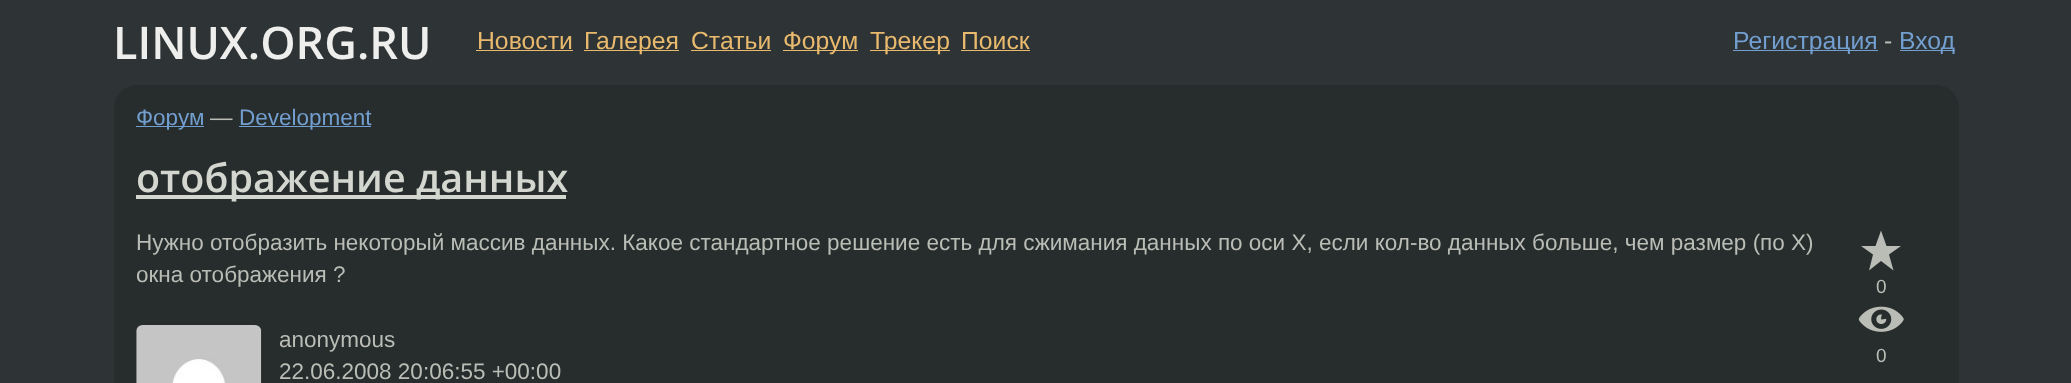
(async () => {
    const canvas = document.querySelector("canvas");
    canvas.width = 2071;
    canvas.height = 383;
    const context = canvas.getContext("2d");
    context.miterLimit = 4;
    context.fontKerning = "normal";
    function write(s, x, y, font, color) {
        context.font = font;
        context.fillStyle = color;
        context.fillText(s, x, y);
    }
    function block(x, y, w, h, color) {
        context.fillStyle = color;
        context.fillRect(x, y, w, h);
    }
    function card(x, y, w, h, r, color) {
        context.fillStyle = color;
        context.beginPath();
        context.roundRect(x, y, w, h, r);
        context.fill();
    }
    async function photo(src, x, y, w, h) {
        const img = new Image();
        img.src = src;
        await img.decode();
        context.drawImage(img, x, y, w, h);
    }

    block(0, 0, 2071, 383, "rgb(46, 52, 54)");
    write("LINUX.ORG.RU", 113, 59, "600 45px Open Sans", "rgb(238, 238, 236)");
    write("Новости", 477, 49, "24.75px Liberation Sans", "rgb(233, 185, 110)");
    block(476, 50, 97, 1, "rgb(233, 185, 110)");
    block(584, 50, 95, 1, "rgb(233, 185, 110)");
    write("Галерея", 584, 49, "24.75px Liberation Sans", "rgb(233, 185, 110)");
    write("Статьи", 691, 49, "24.75px Liberation Sans", "rgb(233, 185, 110)");
    block(691, 50, 80, 1, "rgb(233, 185, 110)");
    block(783, 50, 75, 1, "rgb(233, 185, 110)");
    write("Форум", 783, 49, "24.75px Liberation Sans", "rgb(233, 185, 110)");
    block(870, 50, 80, 1, "rgb(233, 185, 110)");
    write("Трекер", 870, 49, "24.75px Liberation Sans", "rgb(233, 185, 110)");
    write("Поиск", 961, 49, "24.75px Liberation Sans", "rgb(233, 185, 110)");
    block(961, 50, 69, 1, "rgb(233, 185, 110)");
    block(1733, 50, 145, 1, "rgb(114, 159, 207)");
    write("Регистрация", 1733, 49, "24.75px Liberation Sans", "rgb(114, 159, 207)");
    write("-", 1884, 49, "24.75px Liberation Sans", "rgb(186, 189, 182)");
    block(1900, 50, 55, 1, "rgb(114, 159, 207)");
    write("Вход", 1899, 49, "24.75px Liberation Sans", "rgb(114, 159, 207)");
    card(114, 85, 1845, 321, 23, "rgb(39, 44, 45)");
    block(136, 126, 68, 1, "rgb(114, 159, 207)");
    write("Форум", 136, 125, "22.5px Liberation Sans", "rgb(114, 159, 207)");
    write("—", 210, 125, "22.5px Liberation Sans", "rgb(186, 189, 182)");
    block(239, 126, 132, 1, "rgb(114, 159, 207)");
    write("Development", 239, 125, "22.5px Liberation Sans", "rgb(114, 159, 207)");
    block(136, 195, 430, 4, "rgb(211, 215, 207)");
    write("отображение данных", 136, 192, "600 39.5px Open Sans", "rgb(211, 215, 207)");
    write("Нужно отобразить некоторый массив данных. Какое стандартное решение есть для сжимания данных по оси Х, если кол-во данных больше, чем размер (по Х)", 136, 250, "22.5px Liberation Sans", "rgb(186, 189, 182)");
    write("окна отображения ?", 136, 282, "22.5px Liberation Sans", "rgb(186, 189, 182)");
    await photo("media/1.png", 136, 325, 126, 58);
    write("anonymous", 279, 347, "22.5px Liberation Sans", "rgb(186, 189, 182)");
    write("22.06.2008 20:06:55 +00:00", 279, 379, "22.5px Liberation Sans", "rgb(186, 189, 182)");
    context.beginPath();
    context.moveTo(1881, 230.5);
    context.lineTo(1886.5, 246);
    context.lineTo(1901, 246);
    context.lineTo(1889, 254.5);
    context.lineTo(1893.5, 270.5);
    context.lineTo(1881, 261);
    context.lineTo(1869, 270.5);
    context.lineTo(1873, 254.5);
    context.lineTo(1861, 246);
    context.lineTo(1875.5, 246);
    context.closePath();
    context.fill();
    write("0", 1876, 293, "19px Liberation Sans", "rgb(186, 189, 182)");
    await photo("media/2.png", 1858, 306, 46, 26);
    write("0", 1876, 362, "19px Liberation Sans", "rgb(186, 189, 182)");
})();
